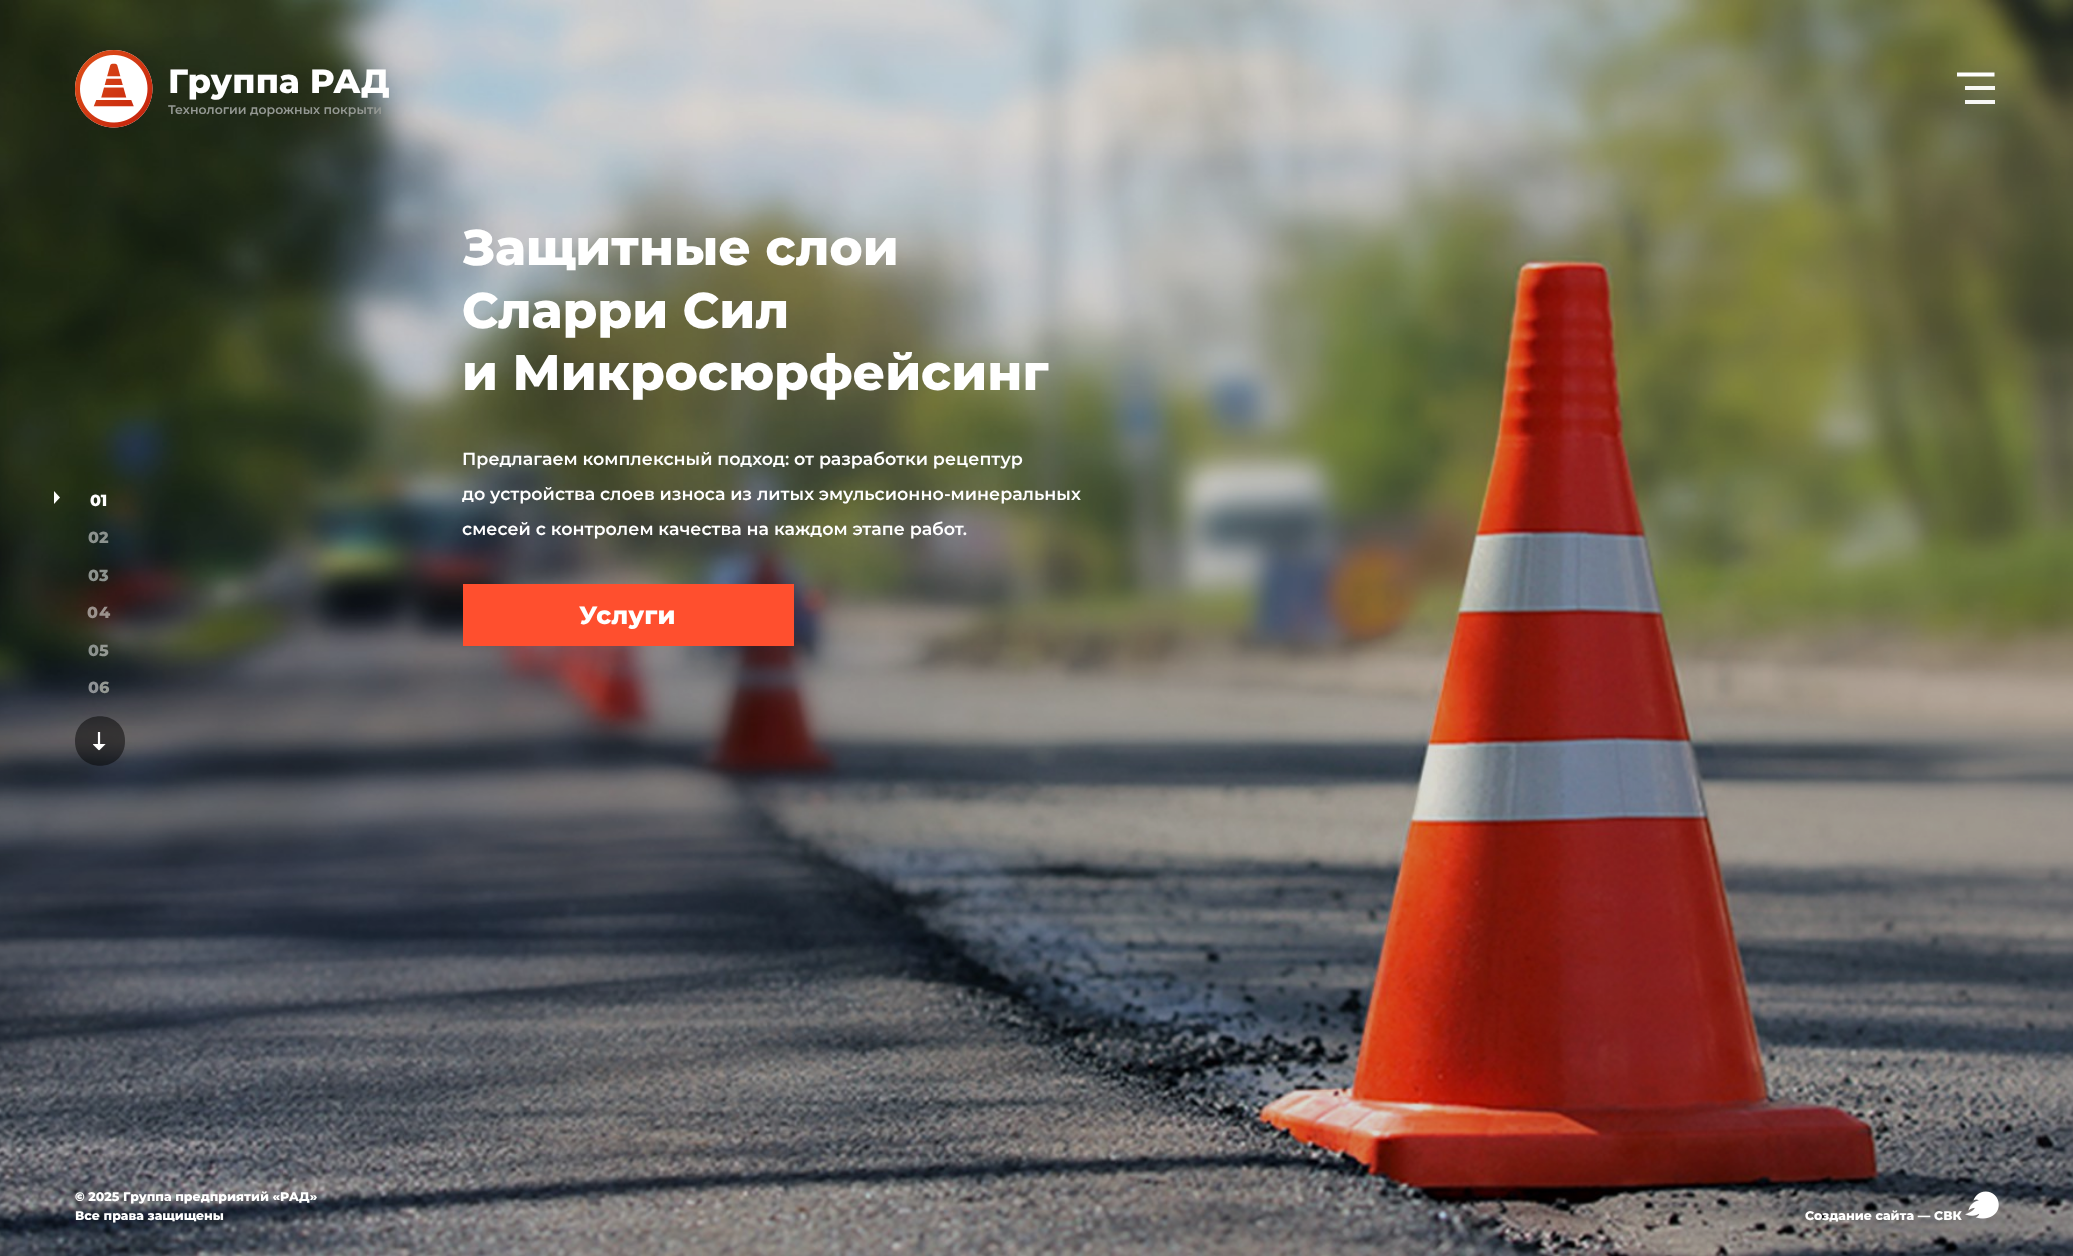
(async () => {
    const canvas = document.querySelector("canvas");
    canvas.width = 2073;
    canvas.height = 1256;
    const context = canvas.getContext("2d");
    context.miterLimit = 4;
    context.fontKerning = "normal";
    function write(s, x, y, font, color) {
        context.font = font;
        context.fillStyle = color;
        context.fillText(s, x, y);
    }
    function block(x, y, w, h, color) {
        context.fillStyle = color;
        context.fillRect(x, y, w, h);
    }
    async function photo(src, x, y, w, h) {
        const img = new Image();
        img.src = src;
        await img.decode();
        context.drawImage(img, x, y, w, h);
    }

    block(0, 0, 2073, 1256, "rgb(255, 255, 255)");
    await photo("media/3.png", 0, 0, 2073, 1256);
    await photo("media/1.png", 75, 50, 78, 78);
    context.letterSpacing = "0.1px";
    write("Группа РАД", 168, 93, "800 33.75px Montserrat", "rgb(255, 255, 255)");
    context.letterSpacing = "0px";
    write("Технологии дорожных покрыти", 168, 114, "600 12.5px Montserrat", "rgb(148, 152, 147)");
    context.beginPath();
    context.moveTo(1994.5, 74.5);
    context.lineTo(1957, 74.5);
    context.strokeStyle = "rgb(255, 255, 255)";
    context.lineWidth = 3.8;
    context.stroke();
    block(1965, 86, 30, 4, "rgba(255, 255, 255, 0.95)");
    block(1965, 100, 30, 4, "rgba(255, 255, 255, 0.95)");
    context.fillStyle = "rgb(255, 255, 255)";
    context.beginPath();
    context.moveTo(54, 504);
    context.lineTo(60, 497.5);
    context.lineTo(54, 491);
    context.fill("evenodd");
    write("01", 90, 506, "800 16px Montserrat", "rgb(255, 255, 255)");
    write("0", 88, 543, "800 16px Montserrat", "rgb(140, 146, 142)");
    write("2", 99, 543, "800 16px Montserrat", "rgb(140, 146, 142)");
    write("0", 88, 581, "800 16px Montserrat", "rgb(140, 146, 142)");
    write("3", 99, 581, "800 16px Montserrat", "rgb(140, 146, 142)");
    write("0", 87, 618, "800 16px Montserrat", "rgb(155, 146, 141)");
    write("4", 99, 618, "800 16px Montserrat", "rgb(155, 146, 141)");
    write("0", 88, 656, "800 16px Montserrat", "rgb(140, 146, 142)");
    write("5", 99, 656, "800 16px Montserrat", "rgb(148, 152, 147)");
    write("0", 88, 693, "800 16px Montserrat", "rgb(143, 146, 150)");
    write("6", 99, 693, "800 16px Montserrat", "rgb(148, 152, 147)");
    context.fillStyle = "rgba(3, 3, 3, 0.5)";
    context.beginPath();
    context.moveTo(125, 741);
    context.bezierCurveTo(125, 774, 75, 774, 75, 741);
    context.bezierCurveTo(75, 708, 125, 708, 125, 741);
    context.closePath();
    context.fill();
    await photo("media/2.png", 93, 732, 13, 19);
    write("Защитные слои", 462, 265, "800 50px Montserrat", "rgb(255, 255, 255)");
    write("Сларри Сил", 462, 328, "800 50px Montserrat", "rgb(255, 255, 255)");
    write("и Микросюрфейсинг", 462, 390, "800 50px Montserrat", "rgb(255, 255, 255)");
    write("Предлагаем комплексный подход: от разработки рецептур", 462, 465, "600 17.5px Montserrat", "rgb(255, 255, 255)");
    write("до устройства слоев износа из литых эмульсионно-минеральных", 462, 500, "600 17.5px Montserrat", "rgb(255, 255, 255)");
    write("смесей с контролем качества на каждом этапе работ.", 462, 535, "600 17.5px Montserrat", "rgb(255, 255, 255)");
    block(463, 584, 331, 62, "rgb(255, 79, 46)");
    write("Услуги", 579, 624, "800 25px Montserrat", "rgb(255, 255, 255)");
    write("© 2025 Группа предприятий «РАД»", 75, 1201, "800 12.5px Montserrat", "rgb(255, 255, 255)");
    write("Все права защищены", 75, 1220, "800 12.5px Montserrat", "rgb(255, 255, 255)");
    write("Создание сайта — СВК", 1805, 1220, "800 12.5px Montserrat", "rgb(255, 255, 255)");
    await photo("media/4.png", 1965, 1191, 34, 28);
})();
